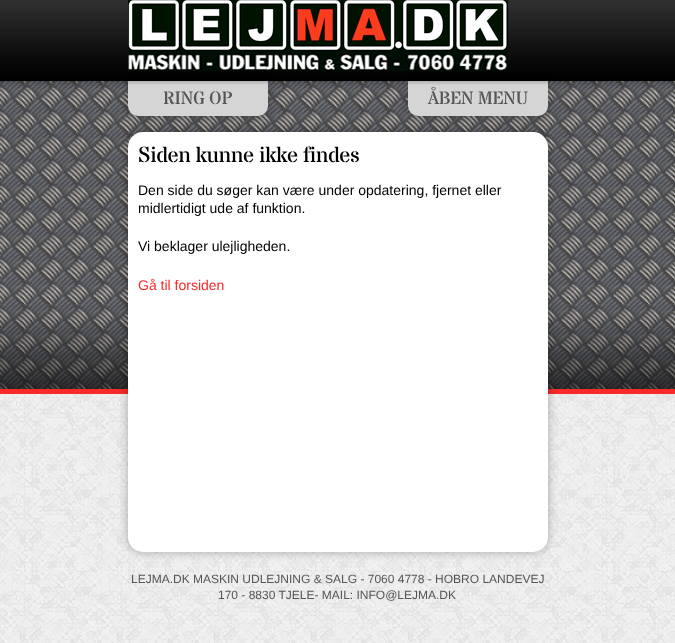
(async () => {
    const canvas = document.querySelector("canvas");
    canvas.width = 675;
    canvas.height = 643;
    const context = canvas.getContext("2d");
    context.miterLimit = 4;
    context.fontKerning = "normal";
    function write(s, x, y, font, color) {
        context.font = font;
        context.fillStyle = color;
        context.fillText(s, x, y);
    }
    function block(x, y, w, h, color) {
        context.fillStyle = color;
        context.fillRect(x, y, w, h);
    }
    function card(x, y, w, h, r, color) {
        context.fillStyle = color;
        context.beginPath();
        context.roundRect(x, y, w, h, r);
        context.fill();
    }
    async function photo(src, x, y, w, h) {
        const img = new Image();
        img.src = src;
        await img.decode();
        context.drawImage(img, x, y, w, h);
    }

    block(0, 0, 675, 643, "rgb(255, 255, 255)");
    await photo("media/1.png", 0, 394, 675, 249);
    await photo("media/2.png", 0, 0, 675, 394);
    await photo("media/3.png", 128, 0, 380, 50);
    context.fillStyle = "rgba(0, 0, 0, 0.3)";
    context.filter = "blur(5px)";
    context.beginPath();
    context.roundRect(408, 81, 140, 35, 10);
    context.fill();
    context.filter = "none";
    await photo("media/4.png", 128, 50, 380, 21);
    context.filter = "blur(5px)";
    context.beginPath();
    context.roundRect(128, 81, 140, 35, 10);
    context.fill();
    context.filter = "none";
    context.fillStyle = "rgb(213, 213, 213)";
    context.beginPath();
    context.roundRect(128, 81, 140, 35, [0, 0, 10, 10]);
    context.fill();
    await photo("media/5.png", 128, 81, 140, 4);
    context.letterSpacing = "-0.25px";
    write("RING OP", 163, 104, "18px Stardos Stencil", "rgb(85, 85, 85)");
    context.fillStyle = "rgb(213, 213, 213)";
    context.beginPath();
    context.roundRect(408, 81, 140, 35, [0, 0, 10, 10]);
    context.fill();
    await photo("media/5.png", 408, 81, 140, 4);
    write("ÅBEN MENU", 428, 104, "18px Stardos Stencil", "rgb(85, 85, 85)");
    context.fillStyle = "rgba(0, 0, 0, 0.3)";
    context.filter = "blur(5px)";
    context.beginPath();
    context.roundRect(128, 132, 420, 420, 15);
    context.fill();
    context.filter = "none";
    card(128, 132, 420, 420, 15, "rgb(255, 255, 255)");
    context.letterSpacing = "-0.55px";
    write("Siden kunne ikke findes", 138, 162, "22px Stardos Stencil", "rgb(0, 0, 0)");
    context.letterSpacing = "0px";
    write("Den side du søger kan være under opdatering, fjernet eller", 138, 195, "14px Liberation Sans", "rgb(0, 0, 0)");
    write("midlertidigt ude af funktion.", 138, 213, "14px Liberation Sans", "rgb(0, 0, 0)");
    write("Vi beklager ulejligheden.", 138, 251, "14px Liberation Sans", "rgb(0, 0, 0)");
    write("Gå til forsiden", 138, 290, "14px Liberation Sans", "rgb(247, 41, 41)");
    write("LEJMA.DK MASKIN UDLEJNING & SALG - 7060 4778 - HOBRO LANDEVEJ", 131, 583, "12px Liberation Sans", "rgb(85, 85, 85)");
    write("170 - 8830 TJELE- MAIL: INFO@LEJMA.DK", 218, 599, "12px Liberation Sans", "rgb(85, 85, 85)");
})();
